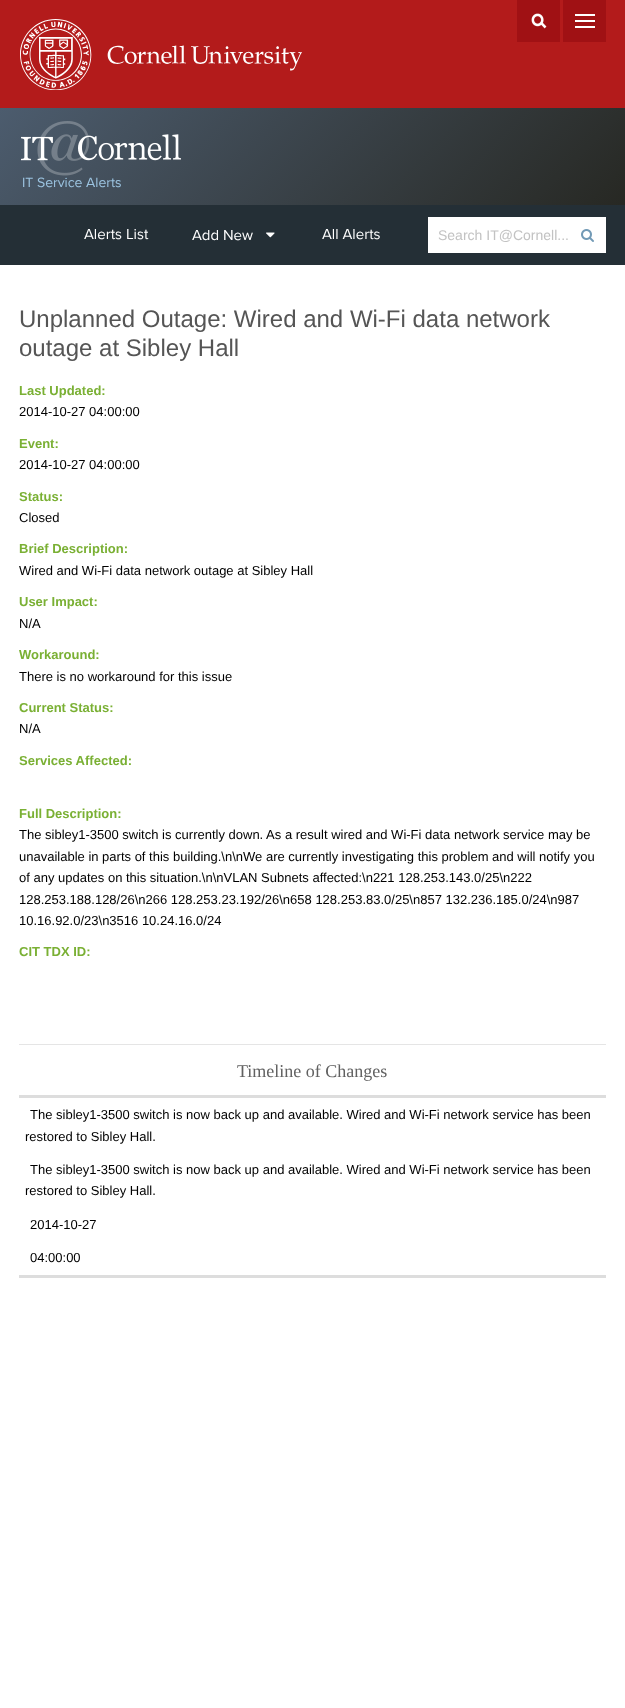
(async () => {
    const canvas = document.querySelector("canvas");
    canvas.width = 625;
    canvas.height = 1708;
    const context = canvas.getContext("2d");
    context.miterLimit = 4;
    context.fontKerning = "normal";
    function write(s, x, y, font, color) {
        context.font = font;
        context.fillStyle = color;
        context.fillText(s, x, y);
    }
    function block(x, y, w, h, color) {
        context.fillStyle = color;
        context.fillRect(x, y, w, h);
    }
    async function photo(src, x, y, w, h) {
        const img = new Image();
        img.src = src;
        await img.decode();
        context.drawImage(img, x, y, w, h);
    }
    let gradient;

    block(0, 0, 625, 1708, "rgb(255, 255, 255)");
    block(0, 0, 625, 108, "rgb(179, 27, 27)");
    await photo("media/1.png", 20, 19, 282, 71);
    block(517, 0, 43, 42, "rgb(160, 17, 20)");
    await photo("media/2.png", 531, 13, 16, 16);
    block(563, 0, 43, 42, "rgb(160, 17, 20)");
    await photo("media/3.png", 575, 14, 20, 14);
    gradient = context.createLinearGradient(132, -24, 493, 337);
    gradient.addColorStop(0, "rgb(76, 92, 110)");
    gradient.addColorStop(1, "rgb(39, 40, 35)");
    context.fillStyle = gradient;
    context.fillRect(0, 108, 625, 97);
    await photo("media/4.png", 21, 121, 160, 55);
    write("IT Service Alerts", 22, 187, "14px Proxima Nova", "rgb(156, 196, 225)");
    block(0, 205, 625, 60, "rgb(36, 47, 54)");
    write("Alerts List", 84, 239, "15px Proxima Nova", "rgb(255, 255, 255)");
    write("Add New", 192, 240, "15px Proxima Nova", "rgb(255, 255, 255)");
    await photo("media/5.png", 266, 232, 9, 6);
    write("All Alerts", 322, 239, "15px Proxima Nova", "rgb(255, 255, 255)");
    block(428, 217, 178, 36, "rgb(255, 255, 255)");
    write("Search IT@Cornell...", 438, 240, "14px Liberation Sans", "rgb(194, 194, 194)");
    await photo("media/6.png", 581, 229, 13, 13);
    write("Unplanned Outage: Wired and Wi-Fi data network", 19, 327, "24px Liberation Sans", "rgb(85, 85, 85)");
    write("outage at Sibley Hall", 19, 356, "24px Liberation Sans", "rgb(85, 85, 85)");
    write("Last Updated:", 19, 395, "bold 13px Liberation Sans", "rgb(122, 176, 52)");
    write("2014-10-27 04:00:00", 19, 416, "13px Liberation Sans", "rgb(0, 0, 0)");
    write("Event:", 19, 448, "bold 13px Liberation Sans", "rgb(122, 176, 52)");
    write("2014-10-27 04:00:00", 19, 469, "13px Liberation Sans", "rgb(0, 0, 0)");
    write("Status:", 19, 501, "bold 13px Liberation Sans", "rgb(122, 176, 52)");
    write("Closed", 19, 522, "13px Liberation Sans", "rgb(0, 0, 0)");
    write("Brief Description:", 19, 553, "bold 13px Liberation Sans", "rgb(122, 176, 52)");
    write("Wired and Wi-Fi data network outage at Sibley Hall", 19, 575, "13px Liberation Sans", "rgb(0, 0, 0)");
    write("User Impact:", 19, 606, "bold 13px Liberation Sans", "rgb(122, 176, 52)");
    write("N/A", 19, 628, "13px Liberation Sans", "rgb(0, 0, 0)");
    write("Workaround:", 19, 659, "bold 13px Liberation Sans", "rgb(122, 176, 52)");
    write("There is no workaround for this issue", 19, 681, "13px Liberation Sans", "rgb(0, 0, 0)");
    write("Current Status:", 19, 712, "bold 13px Liberation Sans", "rgb(122, 176, 52)");
    write("N/A", 19, 733, "13px Liberation Sans", "rgb(0, 0, 0)");
    write("Services Affected:", 19, 765, "bold 13px Liberation Sans", "rgb(122, 176, 52)");
    write("Full Description:", 19, 818, "bold 13px Liberation Sans", "rgb(122, 176, 52)");
    write("The sibley1-3500 switch is currently down. As a result wired and Wi-Fi data network service may be", 19, 839, "13px Liberation Sans", "rgb(0, 0, 0)");
    write("unavailable in parts of this building.\\n\\nWe are currently investigating this problem and will notify you", 19, 861, "13px Liberation Sans", "rgb(0, 0, 0)");
    write("of any updates on this situation.\\n\\nVLAN Subnets affected:\\n221 128.253.143.0/25\\n222", 19, 882, "13px Liberation Sans", "rgb(0, 0, 0)");
    write("128.253.188.128/26\\n266 128.253.23.192/26\\n658 128.253.83.0/25\\n857 132.236.185.0/24\\n987", 19, 904, "13px Liberation Sans", "rgb(0, 0, 0)");
    write("10.16.92.0/23\\n3516 10.24.16.0/24", 19, 925, "13px Liberation Sans", "rgb(0, 0, 0)");
    write("CIT TDX ID:", 19, 956, "bold 13px Liberation Sans", "rgb(122, 176, 52)");
    block(19, 1044, 587, 1, "rgb(229, 229, 229)");
    write("Timeline of Changes", 237, 1077, "18px Liberation Serif", "rgb(97, 97, 97)");
    block(19, 1095, 587, 3, "rgb(221, 221, 221)");
    block(19, 1275, 587, 3, "rgb(221, 221, 221)");
    write("The sibley1-3500 switch is now back up and available. Wired and Wi-Fi network service has been", 30, 1119, "13px Liberation Sans", "rgb(0, 0, 0)");
    write("restored to Sibley Hall.", 25, 1141, "13px Liberation Sans", "rgb(0, 0, 0)");
    write("The sibley1-3500 switch is now back up and available. Wired and Wi-Fi network service has been", 30, 1174, "13px Liberation Sans", "rgb(0, 0, 0)");
    write("restored to Sibley Hall.", 25, 1195, "13px Liberation Sans", "rgb(0, 0, 0)");
    write("2014-10-27", 30, 1229, "13px Liberation Sans", "rgb(0, 0, 0)");
    write("04:00:00", 30, 1262, "13px Liberation Sans", "rgb(0, 0, 0)");
})();
